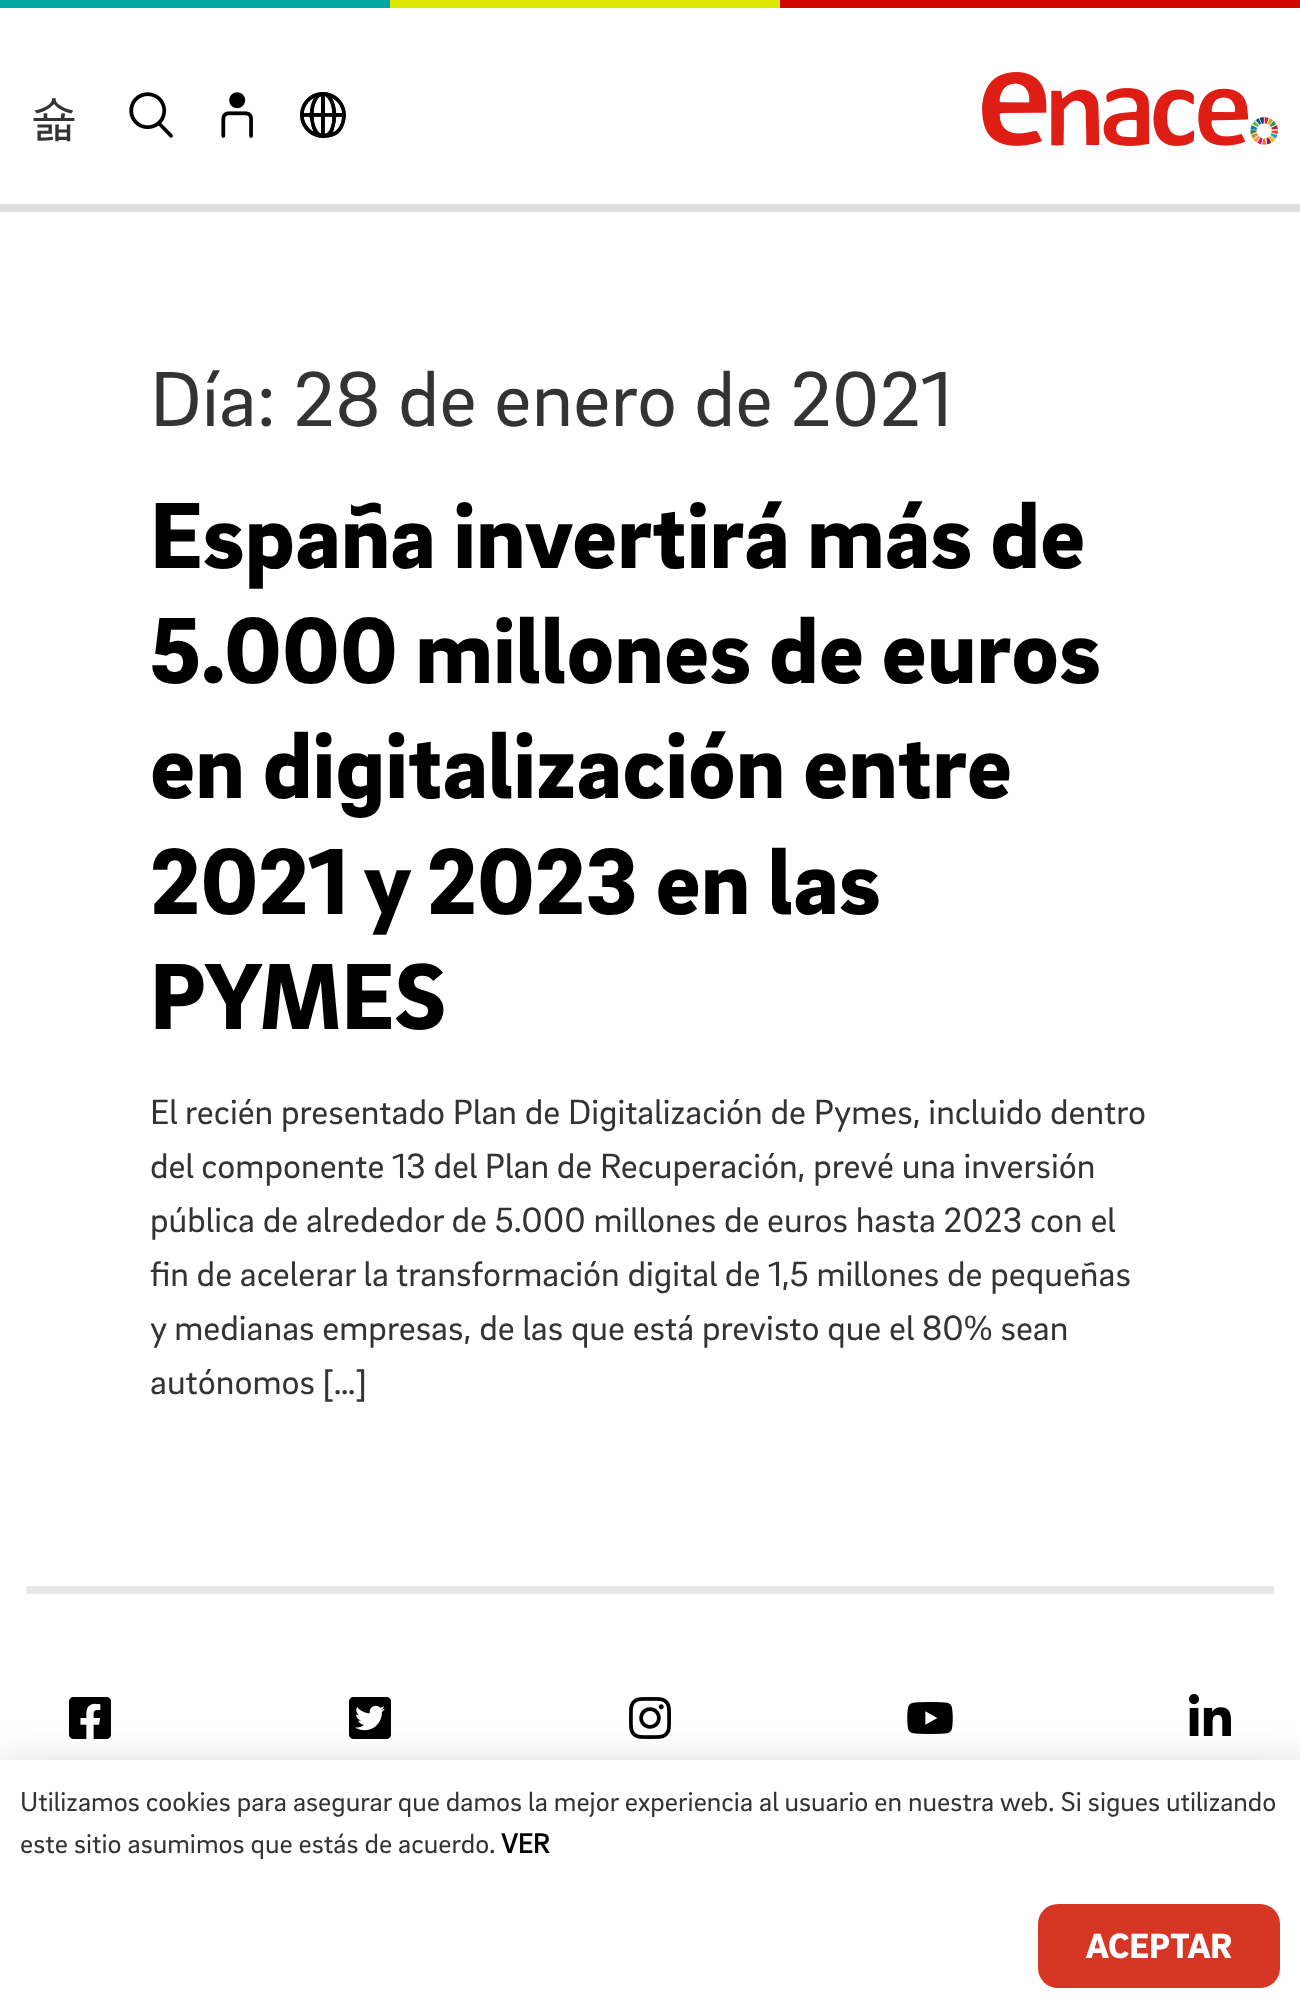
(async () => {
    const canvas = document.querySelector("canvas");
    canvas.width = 1300;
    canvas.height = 2007;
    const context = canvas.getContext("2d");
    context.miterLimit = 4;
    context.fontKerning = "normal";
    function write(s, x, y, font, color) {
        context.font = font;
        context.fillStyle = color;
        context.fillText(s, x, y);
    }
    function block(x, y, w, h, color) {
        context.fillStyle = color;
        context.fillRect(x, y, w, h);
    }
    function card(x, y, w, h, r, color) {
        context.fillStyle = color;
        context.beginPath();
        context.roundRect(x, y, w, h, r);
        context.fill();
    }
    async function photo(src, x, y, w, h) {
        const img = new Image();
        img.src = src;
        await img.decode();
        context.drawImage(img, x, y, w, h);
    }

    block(0, 0, 1300, 2007, "rgb(255, 255, 255)");
    block(0, 0, 390, 8, "rgb(1, 167, 162)");
    block(390, 0, 390, 8, "rgb(221, 231, 0)");
    block(780, 0, 520, 8, "rgb(210, 4, 4)");
    block(0, 204, 1300, 8, "rgb(222, 222, 222)");
    write("숇", 30, 134, "500 48px WenQuanYi Zen Hei", "rgb(51, 51, 51)");
    await photo("media/1.png", 129, 92, 44, 46);
    await photo("media/2.png", 221, 92, 32, 46);
    await photo("media/3.png", 300, 92, 46, 46);
    await photo("media/4.png", 982, 72, 296, 74);
    write("Día: 28 de enero de 2021", 150, 426, "80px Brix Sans", "rgb(51, 51, 51)");
    write("España invertirá más de", 150, 568, "900 96px Brix Sans", "rgb(0, 0, 0)");
    write("5.000 millones de euros", 150, 683, "900 96px Brix Sans", "rgb(0, 0, 0)");
    write("en digitalización entre", 150, 798, "900 96px Brix Sans", "rgb(0, 0, 0)");
    write("2021 y 2023 en las", 150, 914, "900 96px Brix Sans", "rgb(0, 0, 0)");
    write("PYMES", 150, 1029, "900 96px Brix Sans", "rgb(0, 0, 0)");
    write("El recién presentado Plan de Digitalización de Pymes, incluido dentro", 150, 1124, "36px Brix Sans", "rgb(51, 51, 51)");
    write("del componente 13 del Plan de Recuperación, prevé una inversión", 150, 1178, "36px Brix Sans", "rgb(51, 51, 51)");
    write("pública de alrededor de 5.000 millones de euros hasta 2023 con el", 150, 1232, "36px Brix Sans", "rgb(51, 51, 51)");
    write("fin de acelerar la transformación digital de 1,5 millones de pequeñas", 150, 1286, "36px Brix Sans", "rgb(51, 51, 51)");
    write("y medianas empresas, de las que está previsto que el 80% sean", 150, 1340, "36px Brix Sans", "rgb(51, 51, 51)");
    write("autónomos […]", 150, 1394, "36px Brix Sans", "rgb(51, 51, 51)");
    block(26, 1586, 1248, 8, "rgb(231, 231, 231)");
    await photo("media/5.png", 69, 1697, 42, 42);
    await photo("media/6.png", 349, 1697, 42, 42);
    await photo("media/7.png", 629, 1697, 42, 42);
    await photo("media/8.png", 907, 1702, 46, 32);
    await photo("media/9.png", 1189, 1694, 42, 42);
    context.fillStyle = "rgba(0, 0, 0, 0.2)";
    context.filter = "blur(23px)";
    context.beginPath();
    context.rect(-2, 1770, 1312, 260);
    context.fill();
    context.filter = "none";
    block(0, 1760, 1300, 247, "rgb(255, 255, 255)");
    write("Utilizamos cookies para asegurar que damos la mejor experiencia al usuario en nuestra web. Si sigues utilizando", 20, 1811, "28px Brix Sans", "rgb(51, 51, 51)");
    write("este sitio asumimos que estás de acuerdo.", 20, 1853, "28px Brix Sans", "rgb(51, 51, 51)");
    write("VER", 501, 1853, "bold 28px Brix Sans", "rgb(0, 0, 0)");
    card(1038, 1904, 242, 84, 20, "rgb(216, 54, 36)");
    write("ACEPTAR", 1086, 1958, "900 36px Brix Sans", "rgb(255, 255, 255)");
})();
